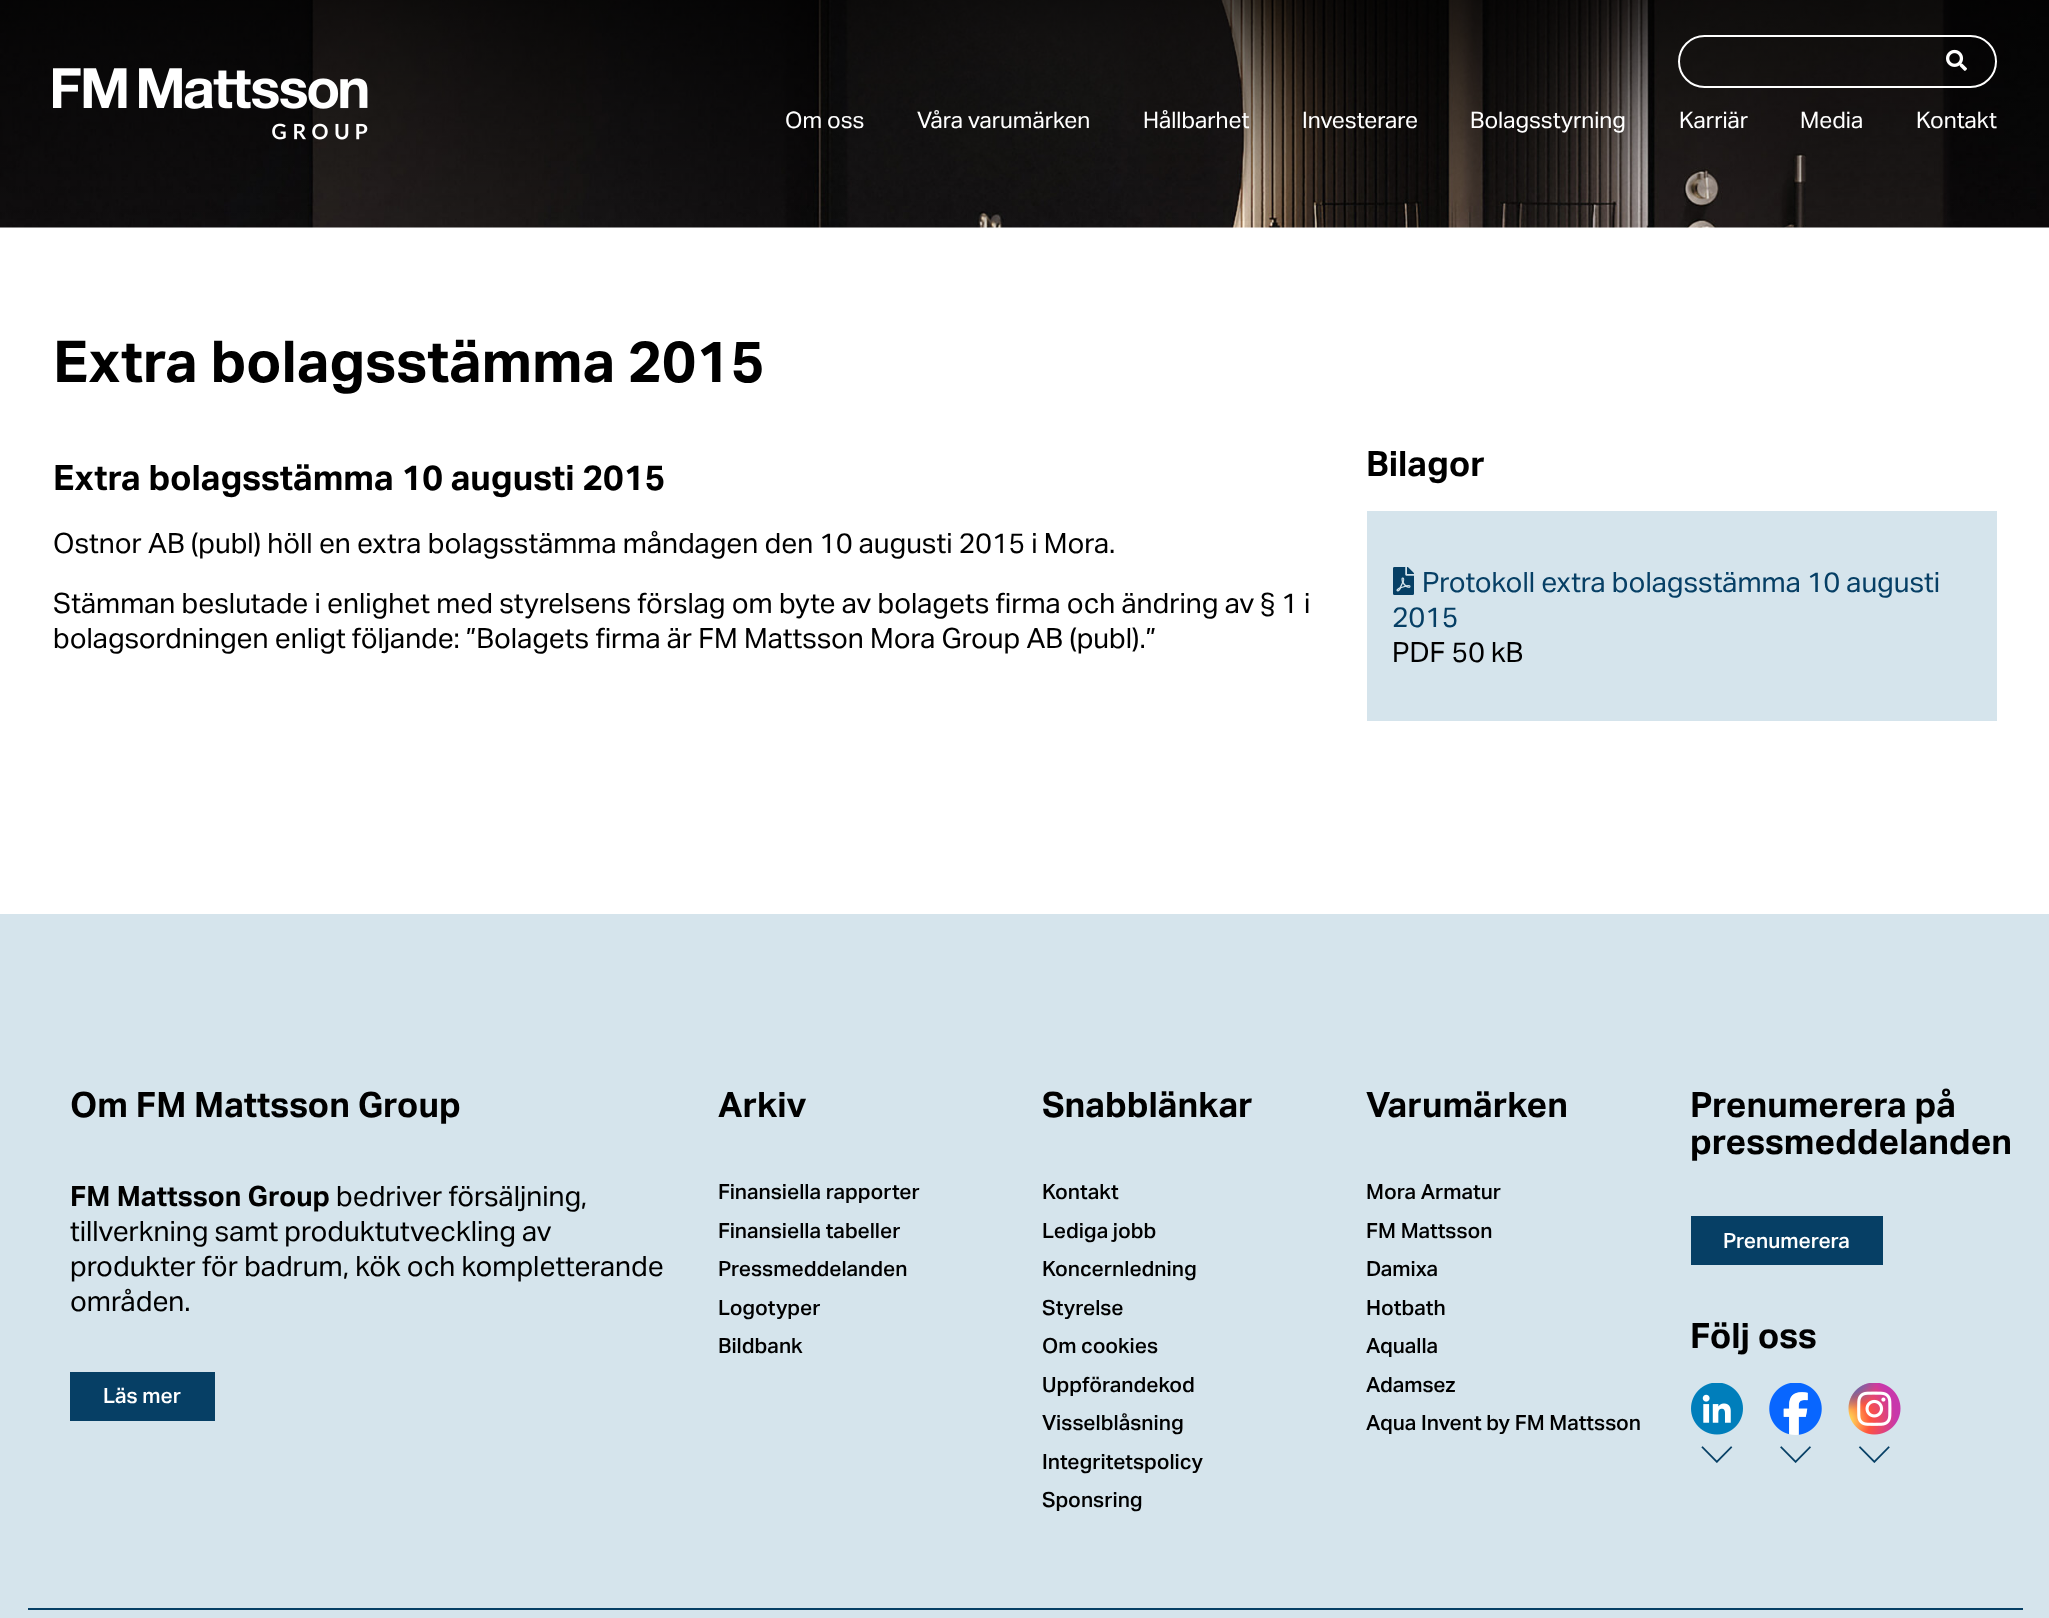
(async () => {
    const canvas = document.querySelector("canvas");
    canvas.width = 2049;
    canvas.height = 1618;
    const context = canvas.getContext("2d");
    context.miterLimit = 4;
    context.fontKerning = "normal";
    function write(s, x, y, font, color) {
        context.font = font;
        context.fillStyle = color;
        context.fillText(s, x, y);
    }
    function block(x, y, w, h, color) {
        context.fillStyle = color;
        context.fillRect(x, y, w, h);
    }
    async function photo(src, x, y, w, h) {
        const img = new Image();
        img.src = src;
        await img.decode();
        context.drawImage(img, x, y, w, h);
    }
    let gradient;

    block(0, 0, 2049, 1618, "rgb(255, 255, 255)");
    await photo("media/3.png", 0, 0, 2049, 228);
    gradient = context.createLinearGradient(1025, 0, 1025, 228);
    gradient.addColorStop(0, "rgba(0, 0, 0, 0.7)");
    gradient.addColorStop(1, "rgba(0, 0, 0, 0)");
    context.fillStyle = gradient;
    context.fillRect(0, 0, 2049, 221);
    await photo("media/1.png", 53, 68, 315, 72);
    context.beginPath();
    context.roundRect(1679, 36, 317, 51, 25.5);
    context.strokeStyle = "rgb(255, 255, 255)";
    context.lineWidth = 2;
    context.stroke();
    await photo("media/2.png", 1946, 49, 21, 22);
    write("Om oss", 785, 128, "22.75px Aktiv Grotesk", "rgb(255, 255, 255)");
    write("Våra varumärken", 917, 128, "22.75px Aktiv Grotesk", "rgb(255, 255, 255)");
    write("Hållbarhet", 1143, 128, "22.75px Aktiv Grotesk", "rgb(255, 255, 255)");
    write("Investerare", 1302, 128, "22.75px Aktiv Grotesk", "rgb(255, 255, 255)");
    write("Bolagsstyrning", 1470, 128, "22.75px Aktiv Grotesk", "rgb(255, 255, 255)");
    write("Karriär", 1679, 128, "22.75px Aktiv Grotesk", "rgb(255, 255, 255)");
    write("Media", 1800, 128, "22.75px Aktiv Grotesk", "rgb(255, 255, 255)");
    write("Kontakt", 1916, 128, "22.75px Aktiv Grotesk", "rgb(255, 255, 255)");
    write("Extra bolagsstämma 2015", 53, 382, "bold 57.75px Aktiv Grotesk", "rgb(0, 0, 0)");
    write("Extra bolagsstämma 10 augusti 2015", 53, 490, "bold 35px Aktiv Grotesk", "rgb(0, 0, 0)");
    write("Ostnor AB (publ) höll en extra bolagsstämma måndagen den 10 augusti 2015 i Mora.", 53, 553, "28px Aktiv Grotesk", "rgb(0, 0, 0)");
    write("Stämman beslutade i enlighet med styrelsens förslag om byte av bolagets firma och ändring av § 1 i", 53, 613, "28px Aktiv Grotesk", "rgb(0, 0, 0)");
    write("bolagsordningen enligt följande: ”Bolagets firma är FM Mattsson Mora Group AB (publ).”", 53, 648, "28px Aktiv Grotesk", "rgb(0, 0, 0)");
    write("Bilagor", 1366, 476, "bold 35px Aktiv Grotesk", "rgb(0, 0, 0)");
    block(1367, 511, 630, 210, "rgb(213, 228, 236)");
    await photo("media/4.png", 1393, 567, 21, 28);
    write("Protokoll extra bolagsstämma 10 augusti", 1422, 592, "28px Aktiv Grotesk", "rgb(6, 63, 101)");
    write("2015", 1392, 627, "28px Aktiv Grotesk", "rgb(6, 63, 101)");
    write("PDF 50 kB", 1392, 662, "28px Aktiv Grotesk", "rgb(0, 0, 0)");
    block(0, 914, 2049, 704, "rgb(213, 228, 236)");
    write("Om FM Mattsson Group", 70, 1117, "bold 35px Aktiv Grotesk", "rgb(0, 0, 0)");
    write("FM Mattsson Group", 70, 1206, "bold 28px Aktiv Grotesk", "rgb(0, 0, 0)");
    write("bedriver försäljning,", 336, 1206, "28px Aktiv Grotesk", "rgb(0, 0, 0)");
    write("tillverkning samt produktutveckling av", 70, 1241, "28px Aktiv Grotesk", "rgb(0, 0, 0)");
    write("produkter för badrum, kök och kompletterande", 70, 1276, "28px Aktiv Grotesk", "rgb(0, 0, 0)");
    write("områden.", 70, 1311, "28px Aktiv Grotesk", "rgb(0, 0, 0)");
    block(70, 1372, 145, 49, "rgb(6, 63, 101)");
    write("Läs mer", 103, 1403, "500 21px Aktiv Grotesk", "rgb(255, 255, 255)");
    write("Arkiv", 718, 1117, "bold 35px Aktiv Grotesk", "rgb(0, 0, 0)");
    write("Finansiella rapporter", 718, 1199, "500 21px Aktiv Grotesk", "rgb(0, 0, 0)");
    write("Finansiella tabeller", 718, 1238, "500 21px Aktiv Grotesk", "rgb(0, 0, 0)");
    write("Pressmeddelanden", 718, 1276, "500 21px Aktiv Grotesk", "rgb(0, 0, 0)");
    write("Logotyper", 718, 1315, "500 21px Aktiv Grotesk", "rgb(0, 0, 0)");
    write("Bildbank", 718, 1353, "500 21px Aktiv Grotesk", "rgb(0, 0, 0)");
    write("Snabblänkar", 1042, 1117, "bold 35px Aktiv Grotesk", "rgb(0, 0, 0)");
    write("Kontakt", 1042, 1199, "500 21px Aktiv Grotesk", "rgb(0, 0, 0)");
    write("Lediga jobb", 1042, 1238, "500 21px Aktiv Grotesk", "rgb(0, 0, 0)");
    write("Koncernledning", 1042, 1276, "500 21px Aktiv Grotesk", "rgb(0, 0, 0)");
    write("Styrelse", 1042, 1315, "500 21px Aktiv Grotesk", "rgb(0, 0, 0)");
    write("Om cookies", 1042, 1353, "500 21px Aktiv Grotesk", "rgb(0, 0, 0)");
    write("Uppförandekod", 1042, 1392, "500 21px Aktiv Grotesk", "rgb(0, 0, 0)");
    write("Visselblåsning", 1042, 1430, "500 21px Aktiv Grotesk", "rgb(0, 0, 0)");
    write("Integritetspolicy", 1042, 1469, "500 21px Aktiv Grotesk", "rgb(0, 0, 0)");
    write("Sponsring", 1042, 1507, "500 21px Aktiv Grotesk", "rgb(0, 0, 0)");
    write("Varumärken", 1366, 1117, "bold 35px Aktiv Grotesk", "rgb(0, 0, 0)");
    write("Mora Armatur", 1366, 1199, "500 21px Aktiv Grotesk", "rgb(0, 0, 0)");
    write("FM Mattsson", 1366, 1238, "500 21px Aktiv Grotesk", "rgb(0, 0, 0)");
    write("Damixa", 1366, 1276, "500 21px Aktiv Grotesk", "rgb(0, 0, 0)");
    write("Hotbath", 1366, 1315, "500 21px Aktiv Grotesk", "rgb(0, 0, 0)");
    write("Aqualla", 1366, 1353, "500 21px Aktiv Grotesk", "rgb(0, 0, 0)");
    write("Adamsez", 1366, 1392, "500 21px Aktiv Grotesk", "rgb(0, 0, 0)");
    write("Aqua Invent by FM Mattsson", 1366, 1430, "500 21px Aktiv Grotesk", "rgb(0, 0, 0)");
    write("Prenumerera på", 1690, 1117, "bold 35px Aktiv Grotesk", "rgb(0, 0, 0)");
    write("pressmeddelanden", 1690, 1154, "bold 35px Aktiv Grotesk", "rgb(0, 0, 0)");
    block(1691, 1216, 192, 49, "rgb(6, 63, 101)");
    write("Prenumerera", 1723, 1248, "500 21px Aktiv Grotesk", "rgb(255, 255, 255)");
    write("Följ oss", 1690, 1348, "bold 35px Aktiv Grotesk", "rgb(0, 0, 0)");
    await photo("media/5.png", 1691, 1383, 52, 80);
    await photo("media/6.png", 1769, 1383, 53, 80);
    await photo("media/7.png", 1848, 1383, 53, 80);
    block(28, 1608, 1995, 2, "rgb(6, 63, 101)");
})();
